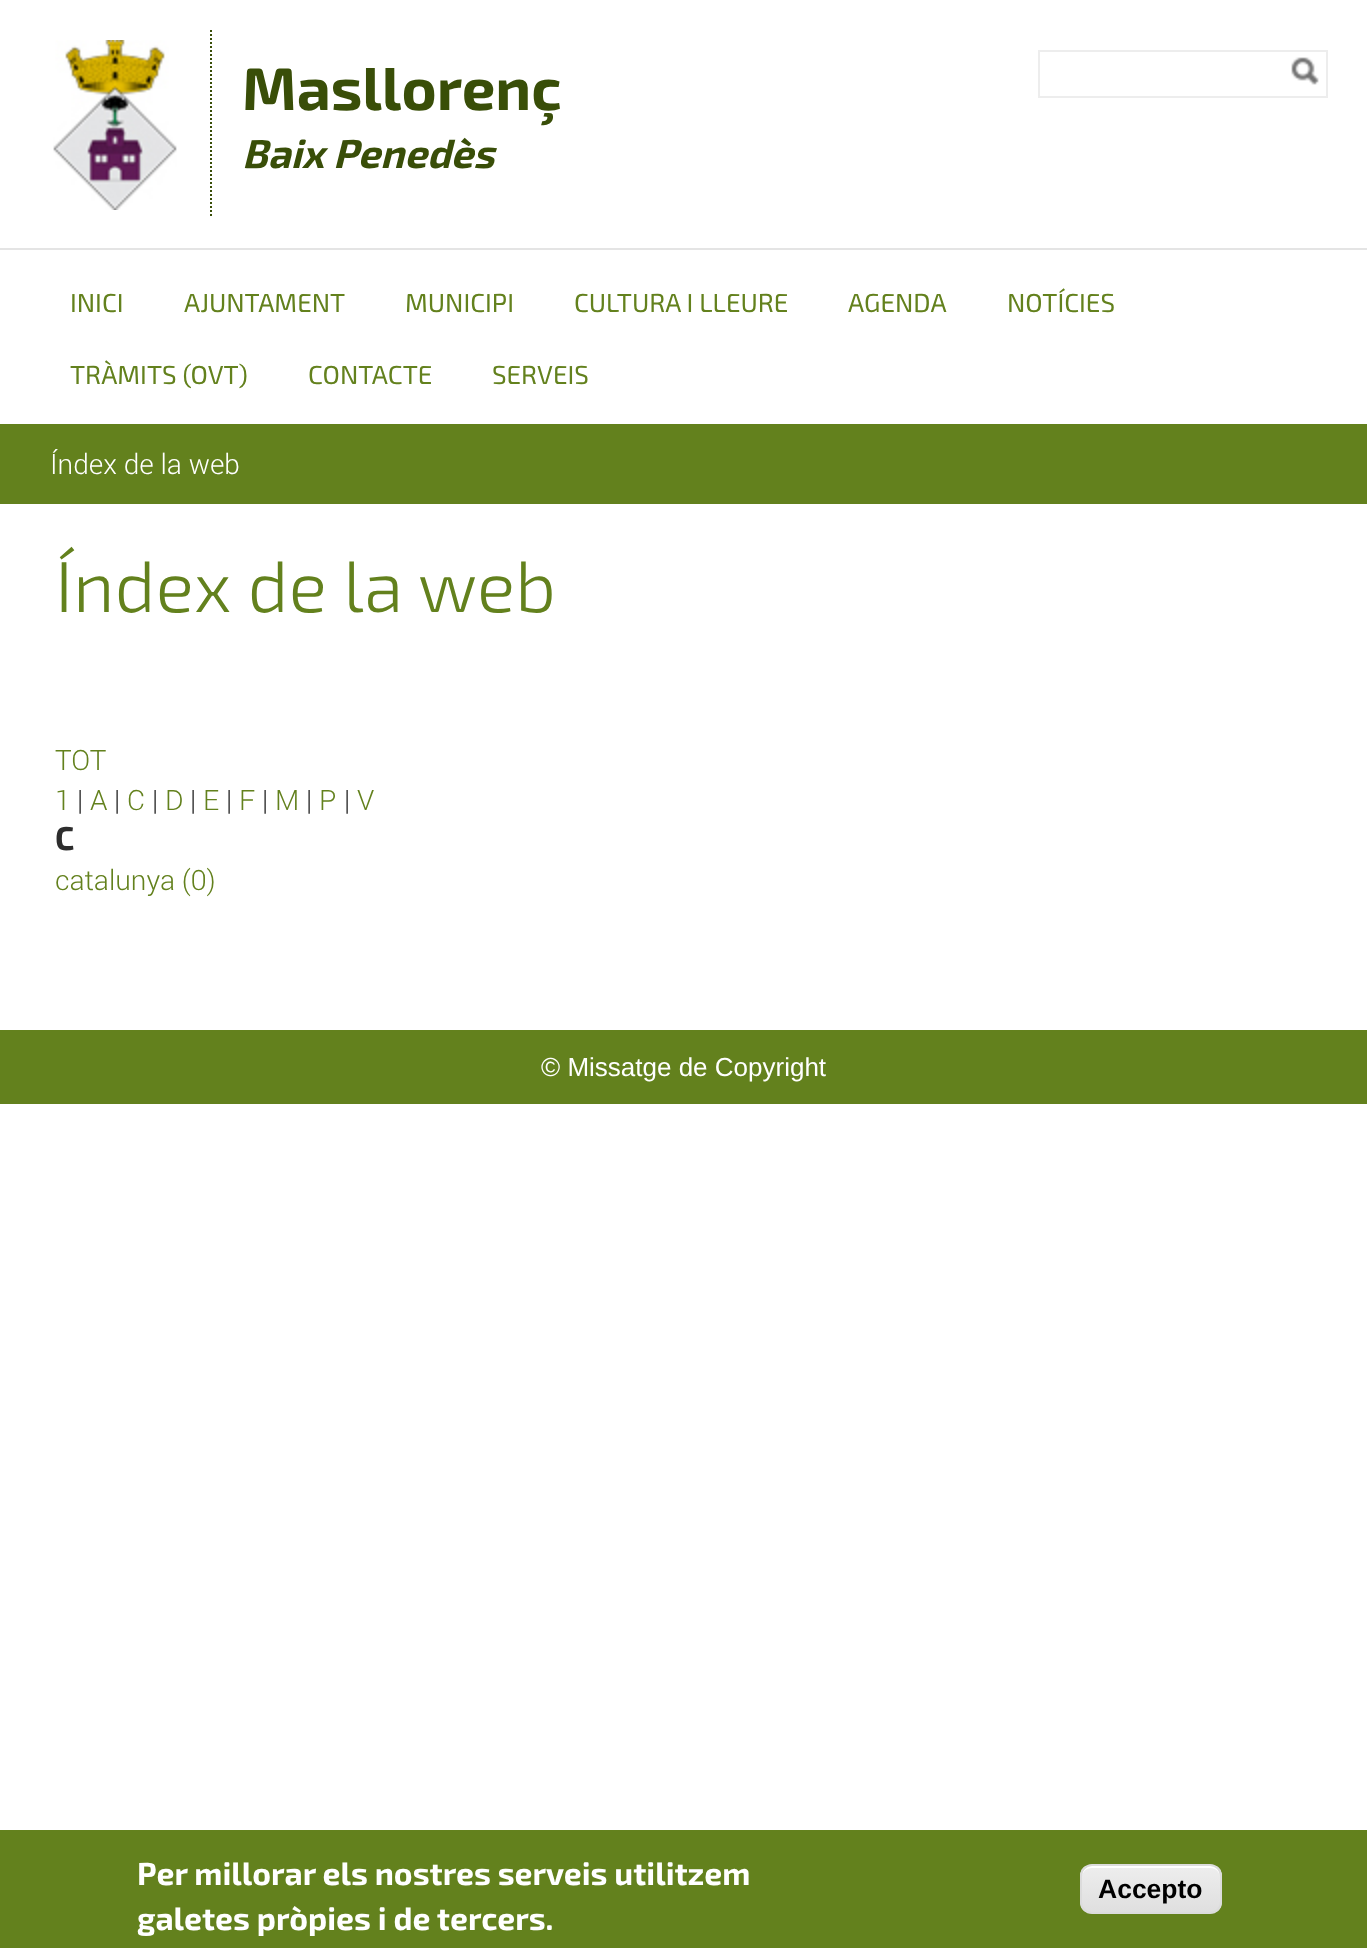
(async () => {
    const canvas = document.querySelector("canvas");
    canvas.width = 1367;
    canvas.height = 1948;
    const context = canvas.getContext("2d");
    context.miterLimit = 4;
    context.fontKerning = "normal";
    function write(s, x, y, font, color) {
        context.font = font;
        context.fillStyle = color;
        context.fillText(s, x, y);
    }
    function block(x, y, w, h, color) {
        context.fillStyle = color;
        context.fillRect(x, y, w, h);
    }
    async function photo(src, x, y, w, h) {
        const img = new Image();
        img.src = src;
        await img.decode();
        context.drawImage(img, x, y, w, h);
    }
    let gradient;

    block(0, 0, 1367, 1948, "rgb(255, 255, 255)");
    await photo("media/1.png", 53, 40, 124, 170);
    context.beginPath();
    context.moveTo(211, 30);
    context.lineTo(211, 218);
    context.strokeStyle = "rgb(57, 78, 8)";
    context.lineWidth = 2;
    context.setLineDash([2, 2]);
    context.stroke();
    write("Masllorenç", 242, 110, "bold 60px 'Exo 2'", "rgb(57, 78, 8)");
    write("Baix Penedès", 242, 168, "italic bold 40.25px 'Exo 2'", "rgb(57, 78, 8)");
    context.strokeStyle = "rgb(237, 237, 237)";
    context.setLineDash([]);
    context.strokeRect(1039, 51, 288, 46);
    await photo("media/2.png", 1291, 57, 28, 28);
    block(0, 248, 1367, 2, "rgb(228, 228, 228)");
    write("INICI", 70, 312, "26px 'Exo 2'", "rgb(99, 129, 29)");
    write("AJUNTAMENT", 184, 312, "26px 'Exo 2'", "rgb(99, 129, 29)");
    write("MUNICIPI", 405, 312, "26px 'Exo 2'", "rgb(99, 129, 29)");
    write("CULTURA I LLEURE", 574, 312, "26px 'Exo 2'", "rgb(99, 129, 29)");
    write("AGENDA", 848, 312, "26px 'Exo 2'", "rgb(99, 129, 29)");
    write("NOTÍCIES", 1007, 312, "26px 'Exo 2'", "rgb(99, 129, 29)");
    write("TRÀMITS (OVT)", 70, 384, "26px 'Exo 2'", "rgb(99, 129, 29)");
    write("CONTACTE", 308, 384, "26px 'Exo 2'", "rgb(99, 129, 29)");
    write("SERVEIS", 492, 384, "26px 'Exo 2'", "rgb(99, 129, 29)");
    block(0, 424, 1367, 80, "rgb(99, 129, 29)");
    write("Índex de la web", 50, 474, "300 28px Roboto", "rgb(255, 255, 255)");
    write("Índex de la web", 55, 612, "300 72px 'Exo 2'", "rgb(99, 129, 29)");
    write("TOT", 55, 770, "300 28px Roboto", "rgb(99, 129, 29)");
    write("1", 55, 810, "300 28px Roboto", "rgb(99, 129, 29)");
    write("|", 77, 810, "300 28px Roboto", "rgb(45, 45, 45)");
    write("A", 90, 810, "300 28px Roboto", "rgb(99, 129, 29)");
    write("|", 114, 810, "300 28px Roboto", "rgb(45, 45, 45)");
    write("C", 127, 810, "300 28px Roboto", "rgb(99, 129, 29)");
    write("|", 152, 810, "300 28px Roboto", "rgb(45, 45, 45)");
    write("D", 165, 810, "300 28px Roboto", "rgb(99, 129, 29)");
    write("|", 190, 810, "300 28px Roboto", "rgb(45, 45, 45)");
    write("E", 203, 810, "300 28px Roboto", "rgb(99, 129, 29)");
    write("|", 226, 810, "300 28px Roboto", "rgb(45, 45, 45)");
    write("F", 239, 810, "300 28px Roboto", "rgb(99, 129, 29)");
    write("|", 262, 810, "300 28px Roboto", "rgb(45, 45, 45)");
    write("M", 275, 810, "300 28px Roboto", "rgb(99, 129, 29)");
    write("|", 306, 810, "300 28px Roboto", "rgb(45, 45, 45)");
    write("P", 319, 810, "300 28px Roboto", "rgb(99, 129, 29)");
    write("|", 344, 810, "300 28px Roboto", "rgb(45, 45, 45)");
    write("V", 357, 810, "300 28px Roboto", "rgb(99, 129, 29)");
    write("C", 55, 850, "bold 33px 'Exo 2'", "rgb(45, 45, 45)");
    write("catalunya (0)", 55, 890, "300 28px Roboto", "rgb(99, 129, 29)");
    block(0, 1030, 1367, 74, "rgb(99, 129, 29)");
    write("© Missatge de Copyright", 541, 1076, "26px Liberation Sans", "rgb(255, 255, 255)");
    block(0, 1830, 1367, 118, "rgb(99, 129, 29)");
    write("Per millorar els nostres serveis utilitzem", 137, 1885, "bold 32px 'Exo 2'", "rgb(255, 255, 255)");
    write("galetes pròpies i de tercers.", 137, 1930, "bold 32px 'Exo 2'", "rgb(255, 255, 255)");
    context.save();
    context.beginPath();
    context.roundRect(1080, 1864, 142, 50, 12);
    context.clip();
    gradient = context.createLinearGradient(1151, 1866, 1151, 1912);
    gradient.addColorStop(0.05, "rgb(237, 237, 237)");
    gradient.addColorStop(1, "rgb(223, 223, 223)");
    context.fillStyle = gradient;
    context.fillRect(1080, 1866, 142, 46);
    context.restore();
    context.beginPath();
    context.moveTo(1092, 1868);
    context.lineTo(1210, 1868);
    context.bezierCurveTo(1216, 1868, 1220, 1872, 1220, 1878);
    context.bezierCurveTo(1220, 1861, 1202, 1866, 1190, 1866);
    context.lineTo(1112, 1866);
    context.bezierCurveTo(1100, 1866, 1082, 1861, 1082, 1878);
    context.bezierCurveTo(1082, 1872, 1086, 1868, 1092, 1868);
    context.closePath();
    context.fill();
    context.beginPath();
    context.roundRect(1081, 1865, 140, 48, 11);
    context.strokeStyle = "rgb(220, 220, 220)";
    context.stroke();
    write("Accepto", 1098, 1898, "bold 26.5px Liberation Sans", "rgb(0, 0, 0)");
})();
